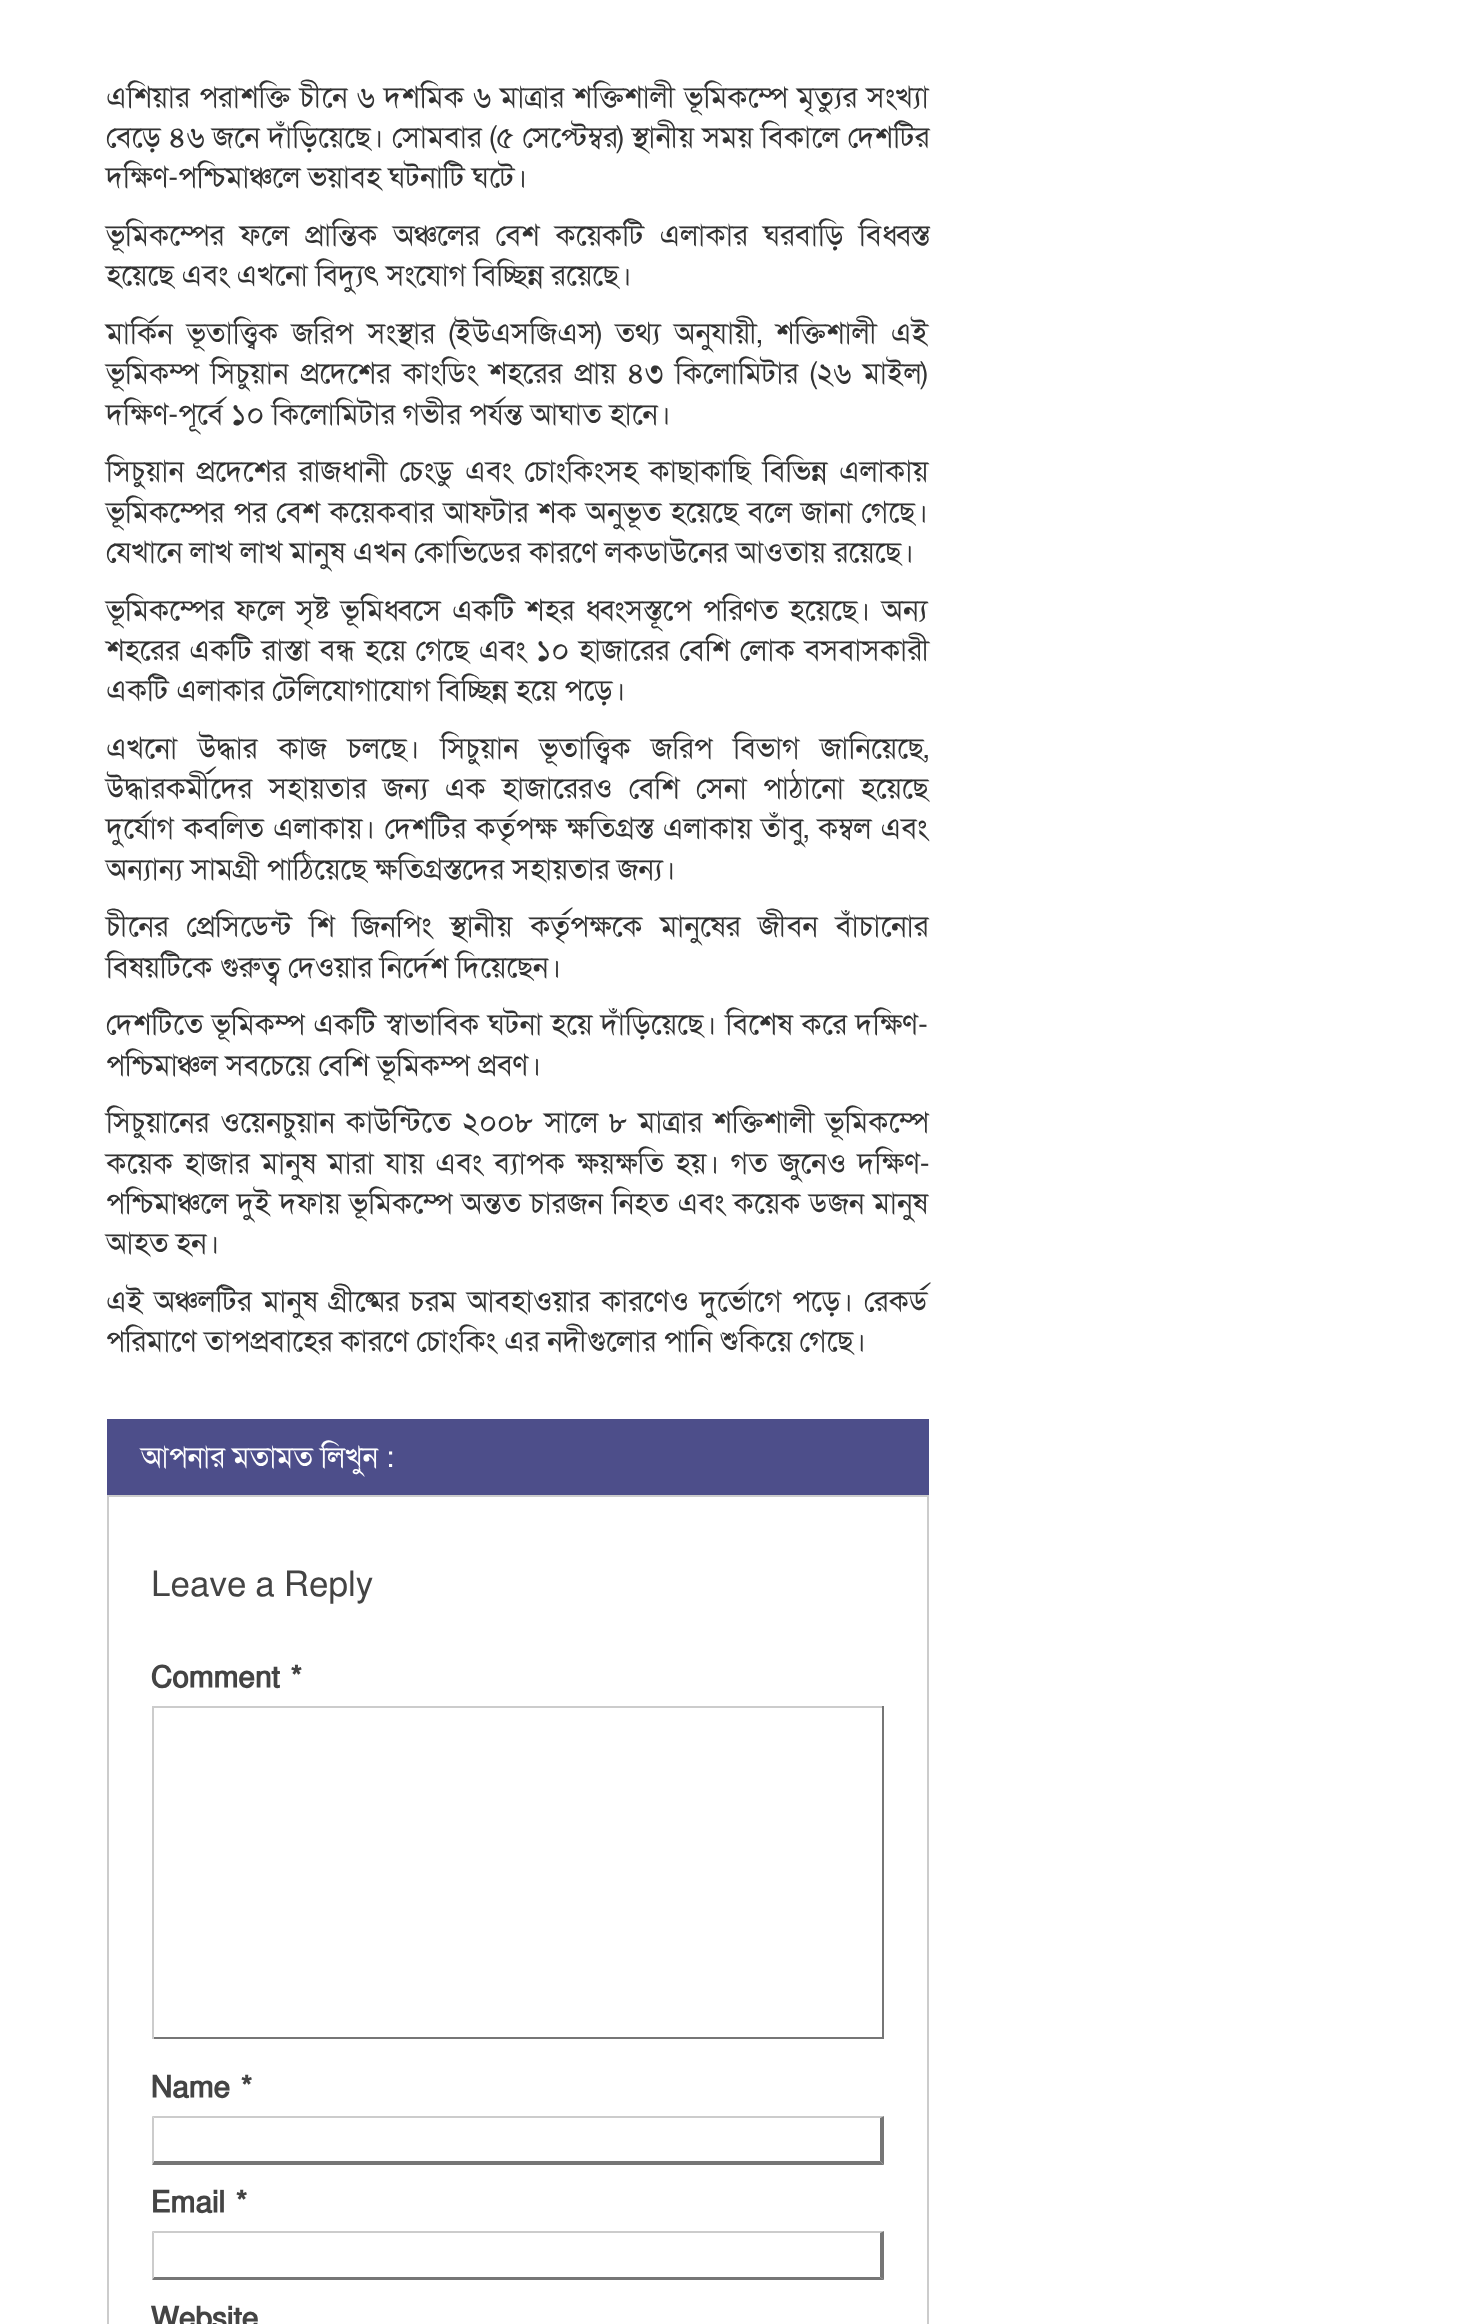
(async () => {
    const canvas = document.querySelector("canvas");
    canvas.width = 1471;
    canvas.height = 2324;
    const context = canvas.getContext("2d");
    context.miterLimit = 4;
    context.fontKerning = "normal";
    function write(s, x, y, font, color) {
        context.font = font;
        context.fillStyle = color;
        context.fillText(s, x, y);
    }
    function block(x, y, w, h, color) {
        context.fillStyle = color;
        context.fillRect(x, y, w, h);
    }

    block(0, 0, 1471, 2324, "rgb(255, 255, 255)");
    context.wordSpacing = "1.75px";
    write("এশিয়ার পরাশক্তি চীনে ৬ দশমিক ৬ মাত্রার শক্তিশালী ভূমিকম্পে মৃত্যুর সংখ্যা", 106, 107, "29.75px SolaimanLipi", "rgb(51, 51, 51)");
    context.wordSpacing = "0.5px";
    write("বেড়ে ৪৬ জনে দাঁড়িয়েছে। সোমবার (৫ সেপ্টেম্বর) স্থানীয় সময় বিকালে দেশটির", 106, 147, "29.75px SolaimanLipi", "rgb(51, 51, 51)");
    context.wordSpacing = "0px";
    write("দক্ষিণ-পশ্চিমাঞ্চলে ভয়াবহ ঘটনাটি ঘটে।", 106, 187, "29.75px SolaimanLipi", "rgb(51, 51, 51)");
    context.wordSpacing = "8px";
    write("ভূমিকম্পের ফলে প্রান্তিক অঞ্চলের বেশ কয়েকটি এলাকার ঘরবাড়ি বিধ্বস্ত", 106, 245, "29.75px SolaimanLipi", "rgb(51, 51, 51)");
    context.wordSpacing = "0px";
    write("হয়েছে এবং এখনো বিদ্যুৎ সংযোগ বিচ্ছিন্ন রয়েছে।", 106, 285, "29.75px SolaimanLipi", "rgb(51, 51, 51)");
    context.wordSpacing = "6.25px";
    write("মার্কিন ভূতাত্ত্বিক জরিপ সংস্থার (ইউএসজিএস) তথ্য অনুযায়ী, শক্তিশালী এই", 106, 343, "29.75px SolaimanLipi", "rgb(51, 51, 51)");
    context.wordSpacing = "4px";
    write("ভূমিকম্প সিচুয়ান প্রদেশের কাংডিং শহরের প্রায় ৪৩ কিলোমিটার (২৬ মাইল)", 106, 383, "29.75px SolaimanLipi", "rgb(51, 51, 51)");
    context.wordSpacing = "0px";
    write("দক্ষিণ-পূর্বে ১০ কিলোমিটার গভীর পর্যন্ত আঘাত হানে।", 106, 424, "29.75px SolaimanLipi", "rgb(51, 51, 51)");
    context.wordSpacing = "4.25px";
    write("সিচুয়ান প্রদেশের রাজধানী চেংডু এবং চোংকিংসহ কাছাকাছি বিভিন্ন এলাকায়", 106, 481, "29.75px SolaimanLipi", "rgb(51, 51, 51)");
    context.wordSpacing = "1.5px";
    write("ভূমিকম্পের পর বেশ কয়েকবার আফটার শক অনুভূত হয়েছে বলে জানা গেছে।", 106, 522, "29.75px SolaimanLipi", "rgb(51, 51, 51)");
    context.wordSpacing = "0px";
    write("যেখানে লাখ লাখ মানুষ এখন কোভিডের কারণে লকডাউনের আওতায় রয়েছে।", 106, 562, "29.75px SolaimanLipi", "rgb(51, 51, 51)");
    context.wordSpacing = "3.5px";
    write("ভূমিকম্পের ফলে সৃষ্ট ভূমিধ্বসে একটি শহর ধ্বংসস্তূপে পরিণত হয়েছে। অন্য", 106, 620, "29.75px SolaimanLipi", "rgb(51, 51, 51)");
    context.wordSpacing = "2px";
    write("শহরের একটি রাস্তা বন্ধ হয়ে গেছে এবং ১০ হাজারের বেশি লোক বসবাসকারী", 106, 660, "29.75px SolaimanLipi", "rgb(51, 51, 51)");
    context.wordSpacing = "0px";
    write("একটি এলাকার টেলিযোগাযোগ বিচ্ছিন্ন হয়ে পড়ে।", 106, 700, "29.75px SolaimanLipi", "rgb(51, 51, 51)");
    context.wordSpacing = "13px";
    write("এখনো উদ্ধার কাজ চলছে। সিচুয়ান ভূতাত্ত্বিক জরিপ বিভাগ জানিয়েছে,", 106, 758, "29.75px SolaimanLipi", "rgb(51, 51, 51)");
    context.wordSpacing = "8.75px";
    write("উদ্ধারকর্মীদের সহায়তার জন্য এক হাজারেরও বেশি সেনা পাঠানো হয়েছে", 106, 798, "29.75px SolaimanLipi", "rgb(51, 51, 51)");
    context.wordSpacing = "1.5px";
    write("দুর্যোগ কবলিত এলাকায়। দেশটির কর্তৃপক্ষ ক্ষতিগ্রস্ত এলাকায় তাঁবু, কম্বল এবং", 106, 838, "29.75px SolaimanLipi", "rgb(51, 51, 51)");
    context.wordSpacing = "0px";
    write("অন্যান্য সামগ্রী পাঠিয়েছে ক্ষতিগ্রস্তদের সহায়তার জন্য।", 106, 879, "29.75px SolaimanLipi", "rgb(51, 51, 51)");
    context.wordSpacing = "10px";
    write("চীনের প্রেসিডেন্ট শি জিনপিং স্থানীয় কর্তৃপক্ষকে মানুষের জীবন বাঁচানোর", 106, 936, "29.75px SolaimanLipi", "rgb(51, 51, 51)");
    context.wordSpacing = "0px";
    write("বিষয়টিকে গুরুত্ব দেওয়ার নির্দেশ দিয়েছেন।", 106, 977, "29.75px SolaimanLipi", "rgb(51, 51, 51)");
    context.wordSpacing = "1px";
    write("দেশটিতে ভূমিকম্প একটি স্বাভাবিক ঘটনা হয়ে দাঁড়িয়েছে। বিশেষ করে দক্ষিণ-", 106, 1034, "29.75px SolaimanLipi", "rgb(51, 51, 51)");
    context.wordSpacing = "0px";
    write("পশ্চিমাঞ্চল সবচেয়ে বেশি ভূমিকম্প প্রবণ।", 106, 1075, "29.75px SolaimanLipi", "rgb(51, 51, 51)");
    context.wordSpacing = "3.25px";
    write("সিচুয়ানের ওয়েনচুয়ান কাউন্টিতে ২০০৮ সালে ৮ মাত্রার শক্তিশালী ভূমিকম্পে", 106, 1132, "29.75px SolaimanLipi", "rgb(51, 51, 51)");
    context.wordSpacing = "3.75px";
    write("কয়েক হাজার মানুষ মারা যায় এবং ব্যাপক ক্ষয়ক্ষতি হয়। গত জুনেও দক্ষিণ-", 106, 1173, "29.75px SolaimanLipi", "rgb(51, 51, 51)");
    context.wordSpacing = "1px";
    write("পশ্চিমাঞ্চলে দুই দফায় ভূমিকম্পে অন্তত চারজন নিহত এবং কয়েক ডজন মানুষ", 106, 1213, "29.75px SolaimanLipi", "rgb(51, 51, 51)");
    context.wordSpacing = "0px";
    write("আহত হন।", 106, 1253, "29.75px SolaimanLipi", "rgb(51, 51, 51)");
    context.wordSpacing = "3px";
    write("এই অঞ্চলটির মানুষ গ্রীষ্মের চরম আবহাওয়ার কারণেও দুর্ভোগে পড়ে। রেকর্ড", 106, 1311, "29.75px SolaimanLipi", "rgb(51, 51, 51)");
    context.wordSpacing = "0px";
    write("পরিমাণে তাপপ্রবাহের কারণে চোংকিং এর নদীগুলোর পানি শুকিয়ে গেছে।", 106, 1351, "29.75px SolaimanLipi", "rgb(51, 51, 51)");
    block(107, 1419, 822, 76, "rgb(77, 78, 138)");
    write("আপনার মতামত লিখুন :", 141, 1467, "29.75px SolaimanLipi", "rgb(255, 255, 255)");
    context.strokeStyle = "rgb(204, 204, 204)";
    context.lineWidth = 2;
    context.strokeRect(108, 1496, 820, 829);
    write("Leave a Reply", 151, 1596, "35px SolaimanLipi", "rgb(68, 68, 68)");
    write("Comment *", 151, 1687, "bold 29.75px SolaimanLipi", "rgb(68, 68, 68)");
    block(152, 1706, 732, 2, "rgb(204, 204, 204)");
    block(882, 1706, 2, 333, "rgb(118, 118, 118)");
    block(152, 2037, 732, 2, "rgb(118, 118, 118)");
    block(152, 1706, 2, 333, "rgb(204, 204, 204)");
    write("Name *", 151, 2097, "bold 29.75px SolaimanLipi", "rgb(68, 68, 68)");
    context.fillStyle = "rgb(204, 204, 204)";
    context.beginPath();
    context.moveTo(152, 2116);
    context.lineTo(884, 2116);
    context.lineTo(880, 2118);
    context.lineTo(154, 2118);
    context.closePath();
    context.fill();
    context.fillStyle = "rgb(118, 118, 118)";
    context.beginPath();
    context.moveTo(884, 2116);
    context.lineTo(884, 2165);
    context.lineTo(880, 2161);
    context.lineTo(880, 2118);
    context.closePath();
    context.fill();
    context.beginPath();
    context.moveTo(884, 2165);
    context.lineTo(152, 2165);
    context.lineTo(154, 2161);
    context.lineTo(880, 2161);
    context.closePath();
    context.fill();
    context.fillStyle = "rgb(204, 204, 204)";
    context.beginPath();
    context.moveTo(152, 2165);
    context.lineTo(152, 2116);
    context.lineTo(154, 2118);
    context.lineTo(154, 2161);
    context.closePath();
    context.fill();
    write("Email *", 151, 2212, "bold 29.75px SolaimanLipi", "rgb(68, 68, 68)");
    context.fillStyle = "rgb(204, 204, 204)";
    context.beginPath();
    context.moveTo(152, 2231);
    context.lineTo(884, 2231);
    context.lineTo(880, 2233);
    context.lineTo(154, 2233);
    context.closePath();
    context.fill();
    context.fillStyle = "rgb(118, 118, 118)";
    context.beginPath();
    context.moveTo(884, 2231);
    context.lineTo(884, 2280);
    context.lineTo(880, 2277);
    context.lineTo(880, 2233);
    context.closePath();
    context.fill();
    context.beginPath();
    context.moveTo(884, 2280);
    context.lineTo(152, 2280);
    context.lineTo(154, 2277);
    context.lineTo(880, 2277);
    context.closePath();
    context.fill();
    context.fillStyle = "rgb(204, 204, 204)";
    context.beginPath();
    context.moveTo(152, 2280);
    context.lineTo(152, 2231);
    context.lineTo(154, 2233);
    context.lineTo(154, 2277);
    context.closePath();
    context.fill();
    write("Website", 151, 2328, "bold 29.75px SolaimanLipi", "rgb(68, 68, 68)");
})();
